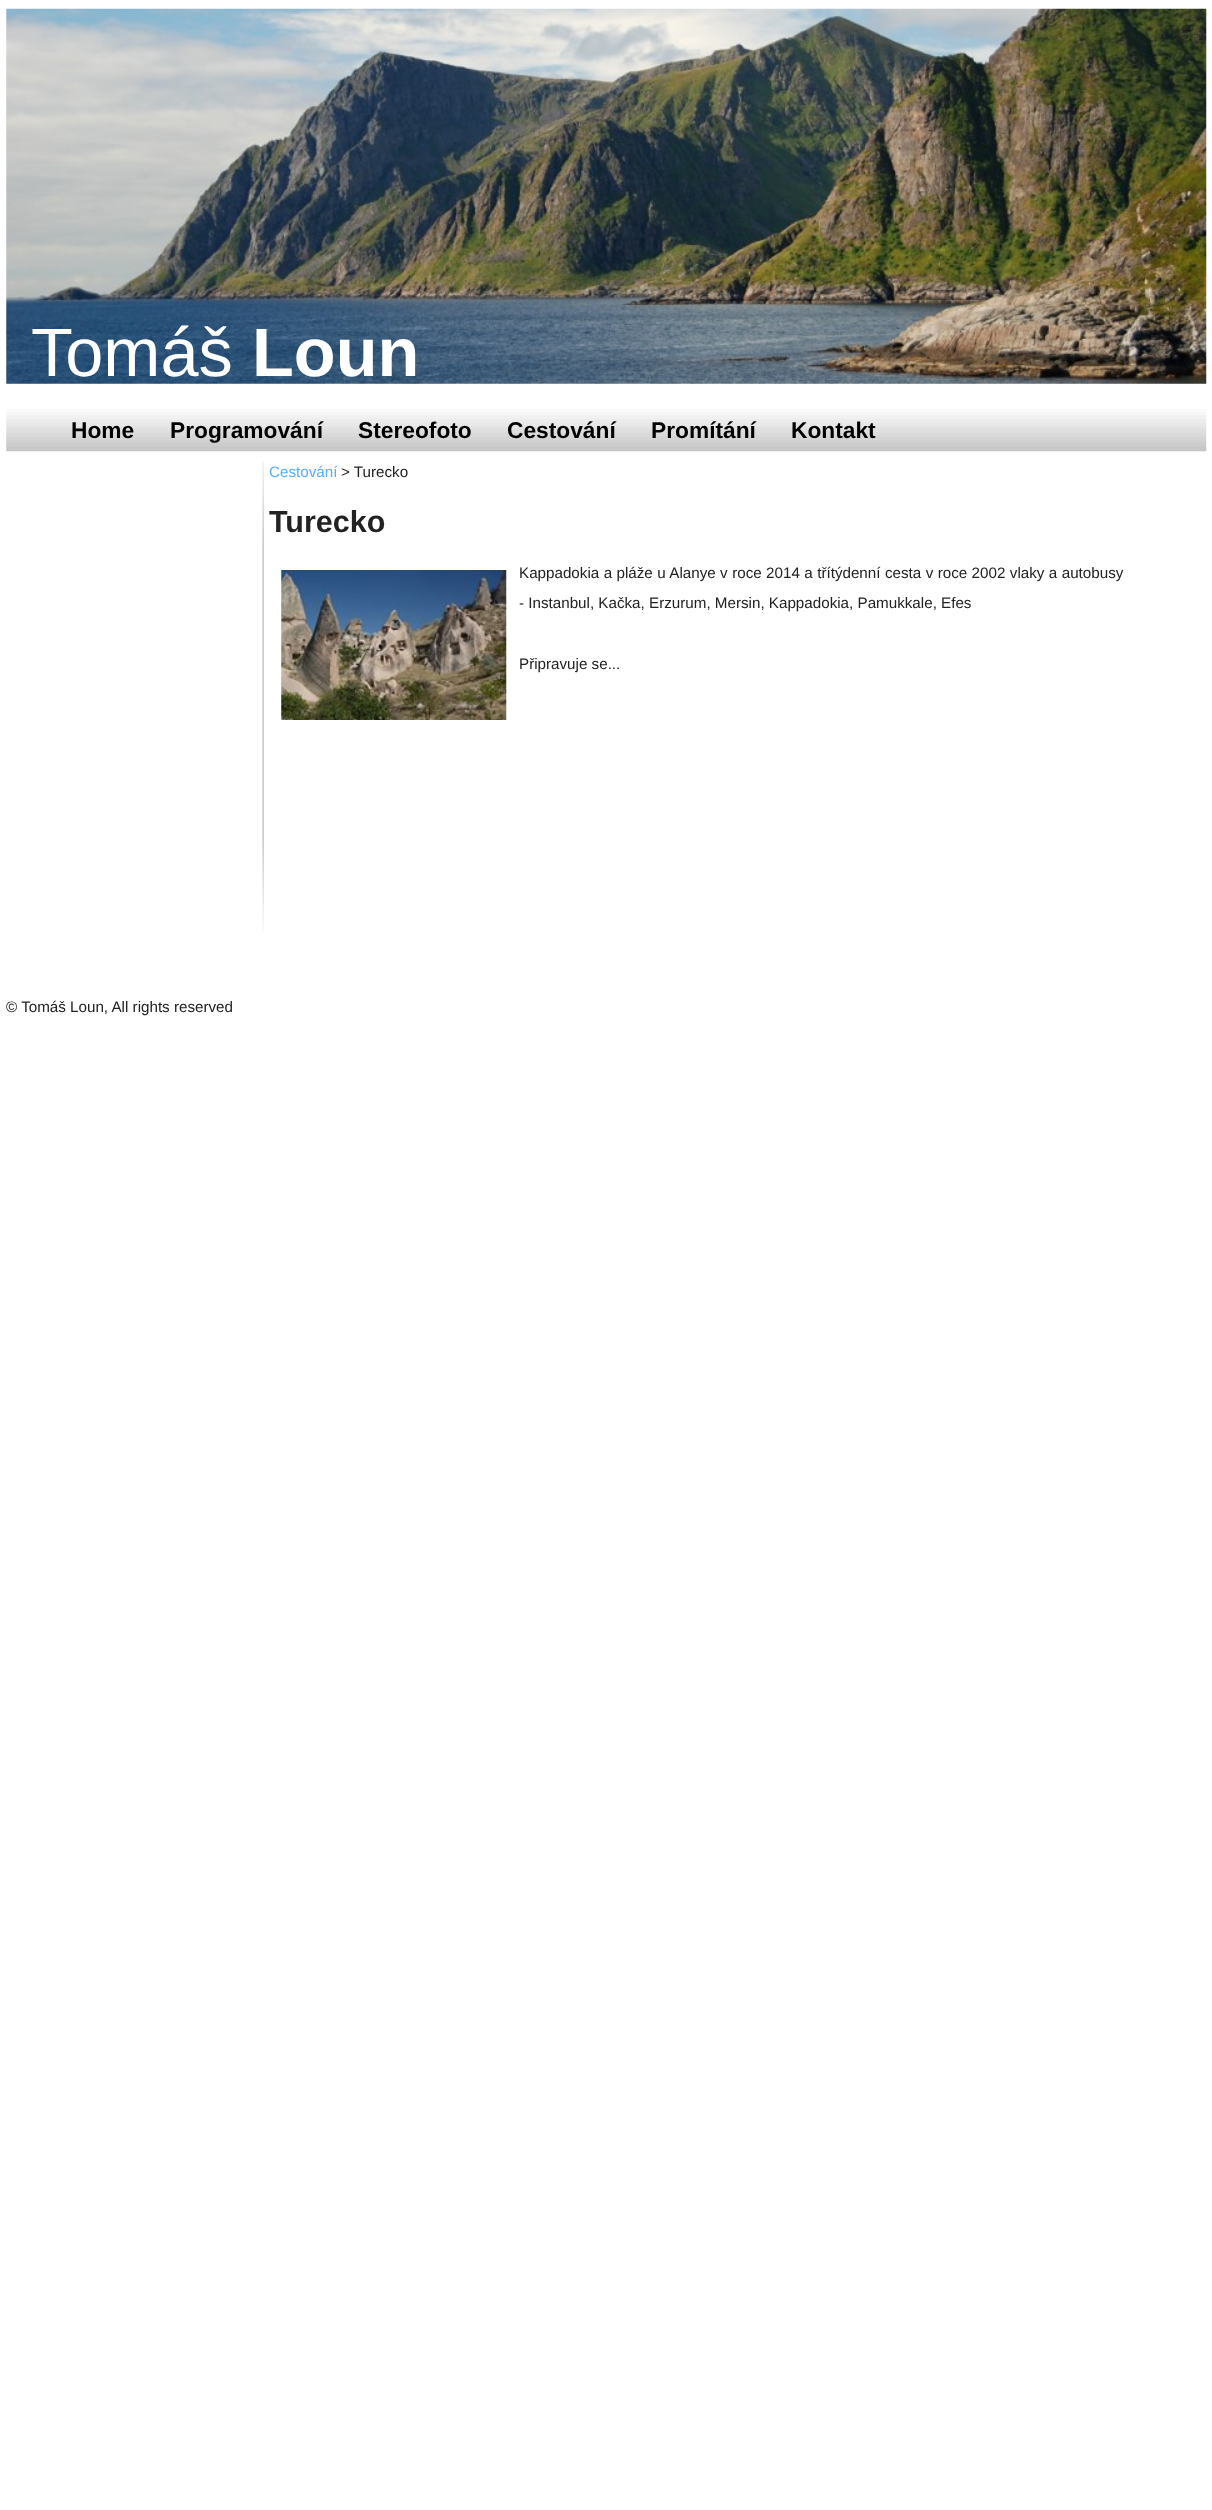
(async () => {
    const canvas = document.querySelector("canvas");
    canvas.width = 1212;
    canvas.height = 2510;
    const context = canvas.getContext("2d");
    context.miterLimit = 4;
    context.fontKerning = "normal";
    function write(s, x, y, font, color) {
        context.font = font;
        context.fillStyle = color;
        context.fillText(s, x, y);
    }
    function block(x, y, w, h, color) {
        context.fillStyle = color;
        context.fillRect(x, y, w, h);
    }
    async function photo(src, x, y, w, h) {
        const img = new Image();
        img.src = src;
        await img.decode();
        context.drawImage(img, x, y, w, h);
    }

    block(0, 0, 1212, 2510, "rgb(255, 255, 255)");
    await photo("media/1.png", 6, 8, 1201, 376);
    write("Tomáš", 31, 376, "68.5px Liberation Sans", "rgb(255, 255, 255)");
    write("Loun", 252, 376, "bold 68.5px Liberation Sans", "rgb(255, 255, 255)");
    await photo("media/2.png", 6, 409, 1201, 43);
    write("Home", 71, 438, "bold 22.75px Liberation Sans", "rgb(0, 0, 0)");
    write("Programování", 170, 438, "bold 22.75px Liberation Sans", "rgb(0, 0, 0)");
    write("Stereofoto", 358, 438, "bold 22.75px Liberation Sans", "rgb(0, 0, 0)");
    write("Cestování", 507, 438, "bold 22.75px Liberation Sans", "rgb(0, 0, 0)");
    write("Promítání", 651, 438, "bold 22.75px Liberation Sans", "rgb(0, 0, 0)");
    write("Kontakt", 791, 438, "bold 22.75px Liberation Sans", "rgb(0, 0, 0)");
    await photo("media/3.png", 262, 461, 2, 470);
    write("Cestování", 269, 477, "15.2px Liberation Sans", "rgb(84, 174, 255)");
    write("> Turecko", 341, 477, "15.2px Liberation Sans", "rgb(34, 34, 34)");
    write("Turecko", 269, 532, "bold 30.5px Liberation Sans", "rgb(34, 34, 34)");
    await photo("media/4.png", 281, 570, 226, 150);
    context.wordSpacing = "0.2px";
    write("Kappadokia a pláže u Alanye v roce 2014 a třítýdenní cesta v roce 2002 vlaky a autobusy", 519, 578, "15.2px Liberation Sans", "rgb(34, 34, 34)");
    context.wordSpacing = "0px";
    write("- Instanbul, Kačka, Erzurum, Mersin, Kappadokia, Pamukkale, Efes", 519, 608, "15.2px Liberation Sans", "rgb(34, 34, 34)");
    write("Připravuje se...", 519, 669, "15.2px Liberation Sans", "rgb(34, 34, 34)");
    write("© Tomáš Loun, All rights reserved", 6, 1012, "15.2px Liberation Sans", "rgb(34, 34, 34)");
})();
